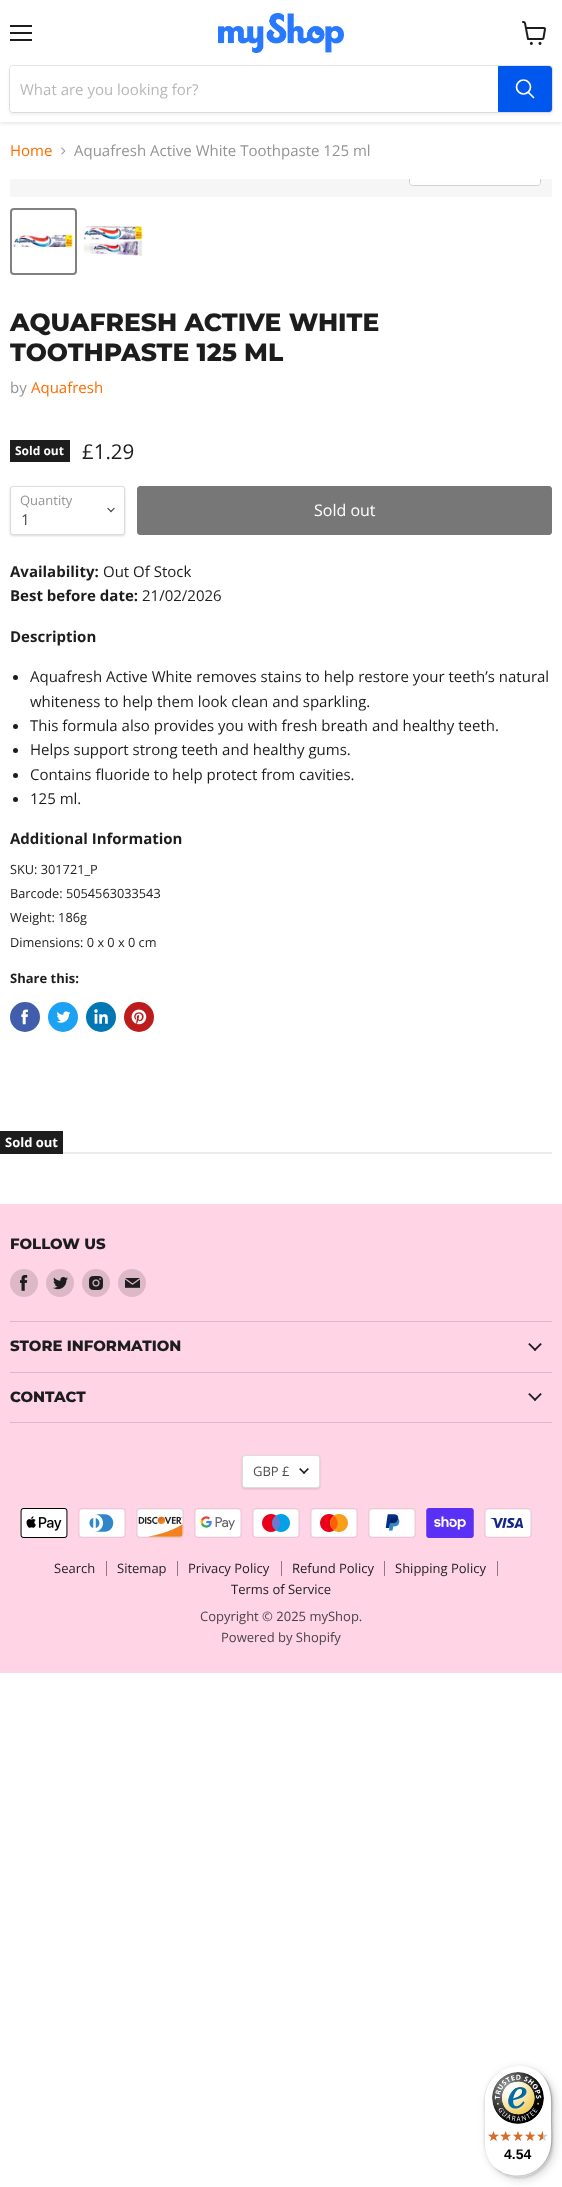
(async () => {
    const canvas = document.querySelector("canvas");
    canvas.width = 562;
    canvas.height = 2187;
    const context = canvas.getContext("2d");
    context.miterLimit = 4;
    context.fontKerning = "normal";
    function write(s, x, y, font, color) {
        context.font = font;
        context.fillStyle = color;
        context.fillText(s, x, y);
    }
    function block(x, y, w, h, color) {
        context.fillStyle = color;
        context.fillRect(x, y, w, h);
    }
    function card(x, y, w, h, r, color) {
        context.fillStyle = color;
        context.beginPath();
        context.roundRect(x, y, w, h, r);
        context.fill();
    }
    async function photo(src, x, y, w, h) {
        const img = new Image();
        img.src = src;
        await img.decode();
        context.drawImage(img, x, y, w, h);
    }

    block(0, 0, 562, 2187, "rgb(255, 255, 255)");
    context.save();
    context.beginPath();
    context.rect(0, 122, 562, 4);
    context.clip();
    context.fillStyle = "rgba(128, 128, 128, 0.25)";
    context.filter = "blur(2px)";
    context.beginPath();
    context.rect(0, 1, 562, 122);
    context.fill();
    context.filter = "none";
    context.restore();
    block(10, 25, 22, 2, "rgb(29, 29, 29)");
    block(10, 32, 22, 2, "rgb(29, 29, 29)");
    block(10, 39, 22, 2, "rgb(29, 29, 29)");
    await photo("media/1.png", 522, 21, 24, 24);
    await photo("media/2.png", 218, 13, 126, 40);
    context.fillStyle = "rgba(128, 128, 128, 0.11)";
    context.filter = "blur(1.5px)";
    context.beginPath();
    context.roundRect(9, 67, 544, 48, 4);
    context.fill();
    context.filter = "none";
    context.beginPath();
    context.roundRect(9.5, 65.5, 543, 47, 3.5);
    context.strokeStyle = "rgba(128, 128, 128, 0.2)";
    context.stroke();
    context.fillStyle = "rgb(255, 255, 255)";
    context.beginPath();
    context.roundRect(10, 66, 488, 46, [3, 0, 0, 3]);
    context.fill();
    write("What are you looking for?", 20, 95, "15px Open Sans", "rgb(184, 184, 184)");
    context.fillStyle = "rgb(0, 87, 238)";
    context.beginPath();
    context.roundRect(498.5, 66.5, 53, 45, [0, 2.5, 2.5, 0]);
    context.fill();
    context.strokeStyle = "rgb(0, 87, 238)";
    context.stroke();
    context.beginPath();
    context.moveTo(533.5, 97.5);
    context.lineTo(528.5, 92.5);
    context.strokeStyle = "rgb(255, 255, 255)";
    context.lineWidth = 1.7;
    context.lineCap = "round";
    context.stroke();
    context.beginPath();
    context.arc(523.5, 87, 7, 0, Math.PI * 2);
    context.stroke();
    write("Home", 10, 156, "15px Open Sans", "rgb(255, 109, 1)");
    await photo("media/3.png", 61, 147, 5, 8);
    write("Aquafresh Active White Toothpaste 125 ml", 74, 156, "15px Open Sans", "rgb(148, 148, 148)");
    block(10, 179, 542, 18, "rgb(246, 246, 246)");
    context.save();
    context.beginPath();
    context.rect(10, 179, 542, 18);
    context.clip();
    context.beginPath();
    context.roundRect(409.5, 156.5, 131, 29, 3.5);
    context.strokeStyle = "rgb(209, 209, 209)";
    context.lineWidth = 1;
    context.stroke();
    context.restore();
    context.fillStyle = "rgba(255, 255, 255, 0.9)";
    context.beginPath();
    context.roundRect(410, 179, 130, 6, [0, 0, 3, 3]);
    context.fill();
    context.beginPath();
    context.roundRect(11, 209, 65, 65, 3);
    context.strokeStyle = "rgb(129, 129, 129)";
    context.lineWidth = 2;
    context.stroke();
    await photo("media/4.png", 13, 230, 60, 19);
    await photo("media/5.png", 83, 224, 60, 32);
    write("AQUAFRESH ACTIVE WHITE", 10, 331, "800 25px Montserrat", "rgb(29, 29, 29)");
    write("TOOTHPASTE 125 ML", 10, 361, "800 25px Montserrat", "rgb(29, 29, 29)");
    write("by", 10, 393, "15px Open Sans", "rgb(148, 148, 148)");
    write("Aquafresh", 31, 393, "15px Open Sans", "rgb(255, 109, 1)");
    block(10, 440, 60, 22, "rgb(29, 29, 29)");
    write("Sold out", 15, 455, "bold 12px Open Sans", "rgb(255, 255, 255)");
    write("£1.29", 82, 459, "20.5px Open Sans", "rgb(29, 29, 29)");
    context.fillStyle = "rgba(0, 0, 0, 0.15)";
    context.filter = "blur(1px)";
    context.beginPath();
    context.roundRect(10, 487, 115, 49, 3);
    context.fill();
    context.filter = "none";
    context.fillStyle = "rgb(255, 255, 255)";
    context.beginPath();
    context.roundRect(10.5, 486.5, 114, 48, 2.5);
    context.fill();
    context.strokeStyle = "rgb(221, 221, 221)";
    context.lineWidth = 1;
    context.stroke();
    write("Quantity", 20, 505, "13px Open Sans", "rgb(148, 148, 148)");
    await photo("media/6.png", 107, 507, 8, 6);
    write("1", 21, 525, "15px Open Sans", "rgb(77, 77, 77)");
    context.fillStyle = "rgb(119, 119, 119)";
    context.beginPath();
    context.roundRect(137.5, 486.5, 414, 48, 2.5);
    context.fill();
    context.strokeStyle = "rgb(119, 119, 119)";
    context.stroke();
    write("Sold out", 314, 516, "16px Open Sans", "rgb(255, 255, 255)");
    write("Availability:", 10, 577, "bold 15px Open Sans", "rgb(29, 29, 29)");
    write("Out Of Stock", 103, 577, "15px Open Sans", "rgb(29, 29, 29)");
    write("Best before date:", 10, 601, "bold 15px Open Sans", "rgb(29, 29, 29)");
    write("21/02/2026", 142, 601, "15px Open Sans", "rgb(29, 29, 29)");
    write("Description", 10, 642, "bold 15px Open Sans", "rgb(29, 29, 29)");
    context.beginPath();
    context.arc(15.5, 677.5, 2.5, 0, Math.PI * 2);
    context.fill();
    write("Aquafresh Active White removes stains to help restore your teeth’s natural", 30, 682, "15px Open Sans", "rgb(29, 29, 29)");
    write("whiteness to help them look clean and sparkling.", 30, 707, "15px Open Sans", "rgb(29, 29, 29)");
    context.beginPath();
    context.arc(15.5, 726.5, 2.5, 0, Math.PI * 2);
    context.fill();
    write("This formula also provides you with fresh breath and healthy teeth.", 30, 731, "15px Open Sans", "rgb(29, 29, 29)");
    context.beginPath();
    context.arc(15.5, 750.5, 2.5, 0, Math.PI * 2);
    context.fill();
    write("Helps support strong teeth and healthy gums.", 30, 755, "15px Open Sans", "rgb(29, 29, 29)");
    context.beginPath();
    context.arc(15.5, 775.5, 2.5, 0, Math.PI * 2);
    context.fill();
    write("Contains fluoride to help protect from cavities.", 30, 780, "15px Open Sans", "rgb(29, 29, 29)");
    context.beginPath();
    context.arc(15.5, 799.5, 2.5, 0, Math.PI * 2);
    context.fill();
    write("125 ml.", 30, 804, "15px Open Sans", "rgb(29, 29, 29)");
    write("Additional Information", 10, 844, "bold 15px Open Sans", "rgb(29, 29, 29)");
    write("SKU: 301721_P", 10, 874, "12.75px Open Sans", "rgb(29, 29, 29)");
    write("Barcode: 5054563033543", 10, 898, "12.75px Open Sans", "rgb(29, 29, 29)");
    write("Weight: 186g", 10, 922, "12.75px Open Sans", "rgb(29, 29, 29)");
    write("Dimensions: 0 x 0 x 0 cm", 10, 947, "12.75px Open Sans", "rgb(29, 29, 29)");
    write("Share this:", 10, 983, "bold 13px Open Sans", "rgb(29, 29, 29)");
    context.fillStyle = "rgb(66, 93, 171)";
    context.beginPath();
    context.arc(25, 1017, 15, 0, Math.PI * 2);
    context.fill();
    await photo("media/7.png", 21, 1009, 7, 16);
    context.fillStyle = "rgb(29, 161, 242)";
    context.beginPath();
    context.arc(63, 1017, 15, 0, Math.PI * 2);
    context.fill();
    await photo("media/8.png", 56, 1011, 15, 12);
    context.fillStyle = "rgb(0, 119, 181)";
    context.beginPath();
    context.arc(101, 1017, 15, 0, Math.PI * 2);
    context.fill();
    await photo("media/9.png", 94, 1009, 14, 15);
    context.fillStyle = "rgb(189, 28, 28)";
    context.beginPath();
    context.arc(139, 1017, 15, 0, Math.PI * 2);
    context.fill();
    await photo("media/10.png", 131, 1009, 16, 16);
    block(0, 1131, 63, 23, "rgb(29, 29, 29)");
    write("Sold out", 5, 1147, "bold 13px Open Sans", "rgb(255, 255, 255)");
    block(63, 1152, 489, 2, "rgb(235, 235, 235)");
    block(0, 1204, 562, 469, "rgb(255, 213, 229)");
    block(10, 1321, 542, 1, "rgb(221, 185, 199)");
    write("FOLLOW US", 10, 1249, "800 14.9px Montserrat", "rgb(29, 29, 29)");
    context.fillStyle = "rgb(221, 185, 199)";
    context.beginPath();
    context.arc(24, 1283, 14, 0, Math.PI * 2);
    context.fill();
    await photo("media/11.png", 20, 1275, 8, 16);
    context.beginPath();
    context.arc(60, 1283, 14, 0, Math.PI * 2);
    context.fill();
    await photo("media/12.png", 53, 1277, 15, 13);
    context.beginPath();
    context.arc(96, 1283, 14, 0, Math.PI * 2);
    context.fill();
    await photo("media/13.png", 89, 1276, 14, 14);
    context.beginPath();
    context.arc(132, 1283, 14, 0, Math.PI * 2);
    context.fill();
    await photo("media/14.png", 125, 1278, 15, 10);
    block(10, 1372, 542, 1, "rgb(221, 185, 199)");
    write("STORE INFORMATION", 10, 1351, "800 14.9px Montserrat", "rgb(29, 29, 29)");
    await photo("media/15.png", 528, 1343, 14, 8);
    block(10, 1422, 542, 1, "rgb(221, 185, 199)");
    write("CONTACT", 10, 1402, "800 14.9px Montserrat", "rgb(29, 29, 29)");
    await photo("media/15.png", 528, 1393, 14, 8);
    context.fillStyle = "rgba(0, 0, 0, 0.15)";
    context.filter = "blur(1px)";
    context.beginPath();
    context.roundRect(242, 1456, 78, 33, 3);
    context.fill();
    context.filter = "none";
    context.fillStyle = "rgb(255, 255, 255)";
    context.beginPath();
    context.roundRect(242.5, 1455.5, 77, 32, 2.5);
    context.fill();
    context.strokeStyle = "rgb(221, 221, 221)";
    context.stroke();
    write("GBP £", 253, 1476, "13px Open Sans", "rgb(77, 77, 77)");
    await photo("media/16.png", 299, 1468, 10, 6);
    await photo("media/17.png", 20, 1508, 48, 30);
    await photo("media/18.png", 78, 1508, 48, 30);
    await photo("media/19.png", 136, 1508, 48, 30);
    await photo("media/20.png", 194, 1508, 48, 30);
    await photo("media/21.png", 252, 1508, 48, 30);
    await photo("media/22.png", 310, 1508, 48, 30);
    await photo("media/23.png", 368, 1508, 48, 30);
    await photo("media/24.png", 426, 1508, 48, 30);
    await photo("media/25.png", 484, 1508, 48, 30);
    block(106, 1561, 1, 15, "rgb(142, 121, 129)");
    write("Search", 54, 1573, "13px Open Sans", "rgb(29, 29, 29)");
    block(177, 1561, 1, 15, "rgb(142, 121, 129)");
    write("Sitemap", 117, 1573, "13px Open Sans", "rgb(29, 29, 29)");
    block(281, 1561, 1, 15, "rgb(142, 121, 129)");
    write("Privacy Policy", 188, 1573, "13px Open Sans", "rgb(29, 29, 29)");
    block(384, 1561, 1, 15, "rgb(142, 121, 129)");
    write("Refund Policy", 292, 1573, "13px Open Sans", "rgb(29, 29, 29)");
    block(497, 1561, 1, 15, "rgb(142, 121, 129)");
    write("Shipping Policy", 395, 1573, "13px Open Sans", "rgb(29, 29, 29)");
    write("Terms of Service", 231, 1594, "13px Open Sans", "rgb(29, 29, 29)");
    write("Copyright © 2025 myShop.", 200, 1621, "13px Open Sans", "rgb(74, 66, 69)");
    write("Powered by Shopify", 221, 1642, "13px Open Sans", "rgb(74, 66, 69)");
    context.fillStyle = "rgba(0, 0, 0, 0.15)";
    context.filter = "blur(4px)";
    context.beginPath();
    context.roundRect(487, 2068, 68, 112, 34);
    context.fill();
    context.filter = "none";
    context.filter = "blur(1px)";
    context.beginPath();
    context.roundRect(485, 2066, 68, 112, 34);
    context.fill();
    context.filter = "none";
    card(484, 2065, 68, 112, 34, "rgb(255, 255, 255)");
    context.fillStyle = "rgb(229, 229, 229)";
    context.beginPath();
    context.moveTo(519, 2066);
    context.bezierCurveTo(527, 2066, 535, 2069, 541, 2074);
    context.bezierCurveTo(524, 2059, 496, 2065, 487, 2086);
    context.bezierCurveTo(482, 2096, 484, 2110, 484, 2121);
    context.bezierCurveTo(484, 2136, 481, 2153, 493, 2166);
    context.bezierCurveTo(488, 2160, 485, 2152, 485, 2144);
    context.lineTo(485, 2100);
    context.bezierCurveTo(485, 2081, 500, 2066, 519, 2066);
    context.closePath();
    context.fill();
    context.fillStyle = "rgba(0, 0, 0, 0.2)";
    context.beginPath();
    context.moveTo(495, 2168);
    context.bezierCurveTo(512, 2183, 540, 2177, 549, 2156);
    context.bezierCurveTo(554, 2146, 552, 2132, 552, 2121);
    context.bezierCurveTo(552, 2106, 555, 2089, 543, 2076);
    context.bezierCurveTo(553, 2089, 551, 2105, 551, 2120);
    context.bezierCurveTo(551, 2131, 553, 2145, 548, 2155);
    context.bezierCurveTo(540, 2176, 513, 2182, 495, 2168);
    context.closePath();
    context.fill();
    context.fillStyle = "rgba(50, 50, 50, 0.2)";
    context.beginPath();
    context.moveTo(491, 2164);
    context.bezierCurveTo(498, 2172, 507, 2177, 518, 2177);
    context.bezierCurveTo(537, 2177, 552, 2162, 552, 2143);
    context.lineTo(552, 2099);
    context.bezierCurveTo(552, 2088, 547, 2079, 539, 2072);
    context.bezierCurveTo(546, 2079, 551, 2088, 551, 2098);
    context.lineTo(551, 2142);
    context.bezierCurveTo(551, 2161, 536, 2176, 517, 2176);
    context.bezierCurveTo(507, 2176, 498, 2171, 491, 2164);
    context.closePath();
    context.fill();
    context.fillStyle = "rgba(255, 255, 255, 0.3)";
    context.beginPath();
    context.moveTo(484, 2142);
    context.bezierCurveTo(484, 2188, 552, 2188, 552, 2142);
    context.bezierCurveTo(552, 2161, 536, 2176, 518, 2176);
    context.bezierCurveTo(499, 2176, 484, 2161, 484, 2142);
    context.closePath();
    context.fill();
    await photo("media/26.png", 492, 2072, 52, 52);
    await photo("media/27.png", 488, 2131, 11, 10);
    await photo("media/28.png", 501, 2131, 10, 10);
    await photo("media/29.png", 513, 2131, 10, 10);
    await photo("media/30.png", 525, 2131, 11, 10);
    await photo("media/30.png", 537, 2131, 11, 10);
    await photo("media/31.png", 488, 2131, 11, 10);
    await photo("media/32.png", 500, 2131, 11, 10);
    await photo("media/33.png", 513, 2131, 10, 10);
    await photo("media/34.png", 525, 2131, 10, 10);
    await photo("media/35.png", 537, 2131, 6, 10);
    write("4.54", 504, 2159, "bold 14px Liberation Sans", "rgb(0, 0, 0)");
})();
